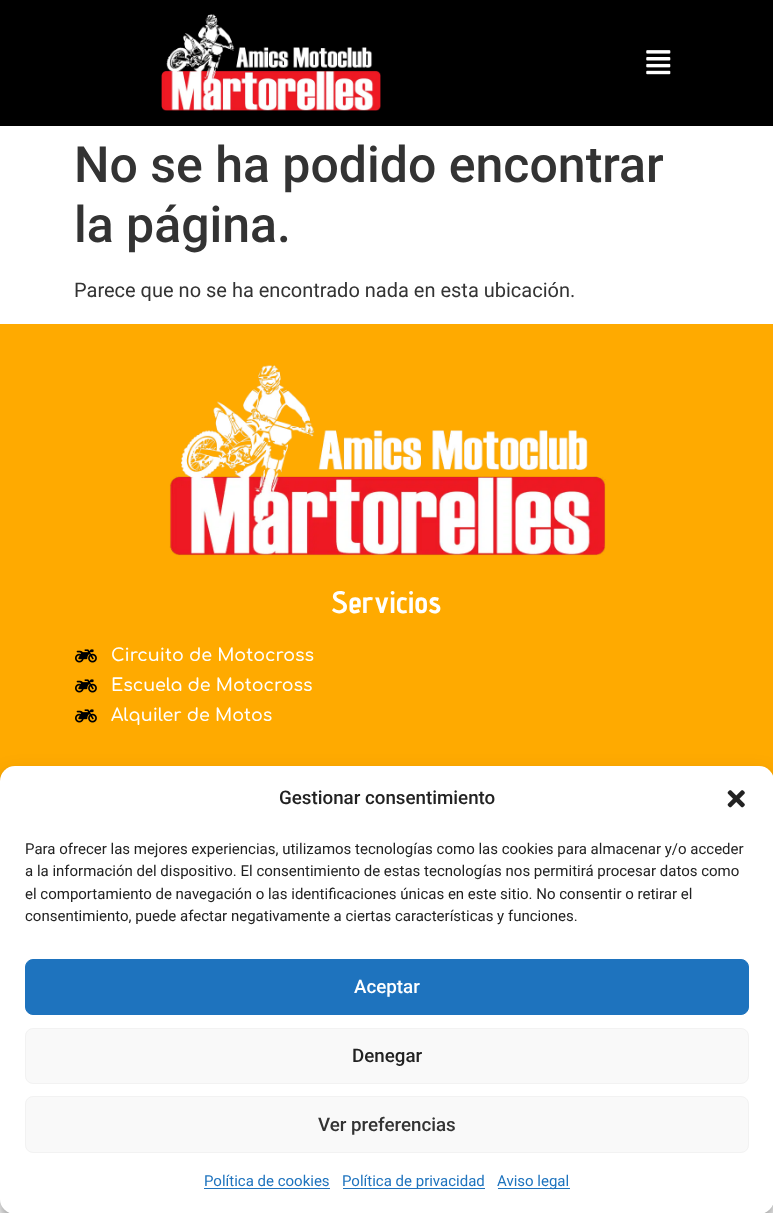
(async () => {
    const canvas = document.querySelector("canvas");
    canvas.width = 773;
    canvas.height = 1213;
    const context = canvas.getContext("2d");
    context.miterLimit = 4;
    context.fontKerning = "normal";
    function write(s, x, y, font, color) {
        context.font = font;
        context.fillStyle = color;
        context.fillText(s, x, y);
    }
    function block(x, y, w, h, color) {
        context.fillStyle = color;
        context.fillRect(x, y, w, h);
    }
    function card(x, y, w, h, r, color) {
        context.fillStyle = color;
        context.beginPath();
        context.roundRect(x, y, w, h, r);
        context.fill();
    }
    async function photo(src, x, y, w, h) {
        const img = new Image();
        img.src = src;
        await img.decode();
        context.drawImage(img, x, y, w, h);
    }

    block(0, 0, 773, 1213, "rgb(255, 255, 255)");
    block(0, 0, 773, 126, "rgb(0, 0, 0)");
    await photo("media/1.png", 161, 14, 220, 97);
    await photo("media/2.png", 646, 50, 25, 25);
    write("No se ha podido encontrar", 74, 182, "500 50px Roboto", "rgb(51, 51, 51)");
    write("la página.", 74, 242, "500 50px Roboto", "rgb(51, 51, 51)");
    write("Parece que no se ha encontrado nada en esta ubicación.", 74, 297, "20px Roboto", "rgb(51, 51, 51)");
    block(0, 324, 773, 457, "rgb(255, 170, 0)");
    await photo("media/3.png", 169, 365, 437, 191);
    write("Servicios", 331, 613, "bold 31px Advent Pro", "rgb(255, 255, 255)");
    await photo("media/4.png", 75, 649, 22, 14);
    write("Circuito de Motocross", 111, 661, "600 17.5px Comfortaa", "rgb(255, 255, 255)");
    await photo("media/4.png", 75, 679, 22, 14);
    write("Escuela de Motocross", 111, 691, "600 17.5px Comfortaa", "rgb(255, 255, 255)");
    await photo("media/4.png", 75, 709, 22, 14);
    write("Alquiler de Motos", 111, 721, "600 17.5px Comfortaa", "rgb(255, 255, 255)");
    context.fillStyle = "rgba(0, 0, 0, 0.23)";
    context.filter = "blur(4px)";
    context.beginPath();
    context.roundRect(0, 774, 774, 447, 15);
    context.fill();
    context.filter = "none";
    context.fillStyle = "rgba(0, 0, 0, 0.19)";
    context.filter = "blur(12.5px)";
    context.beginPath();
    context.roundRect(0, 779, 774, 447, 15);
    context.fill();
    context.filter = "none";
    card(0, 766, 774, 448, 15, "rgb(255, 255, 255)");
    write("Gestionar consentimiento", 279, 804, "500 18.75px Roboto", "rgb(34, 34, 34)");
    await photo("media/5.png", 727, 790, 18, 18);
    write("Para ofrecer las mejores experiencias, utilizamos tecnologías como las cookies para almacenar y/o acceder", 25, 854, "15px Roboto", "rgb(34, 34, 34)");
    write("a la información del dispositivo. El consentimiento de estas tecnologías nos permitirá procesar datos como", 25, 876, "15px Roboto", "rgb(34, 34, 34)");
    write("el comportamiento de navegación o las identificaciones únicas en este sitio. No consentir o retirar el", 25, 899, "15px Roboto", "rgb(34, 34, 34)");
    write("consentimiento, puede afectar negativamente a ciertas características y funciones.", 25, 921, "15px Roboto", "rgb(34, 34, 34)");
    context.fillStyle = "rgb(30, 115, 190)";
    context.beginPath();
    context.roundRect(25.5, 959.5, 723, 55, 7.5);
    context.fill();
    context.strokeStyle = "rgb(30, 115, 190)";
    context.stroke();
    write("Aceptar", 354, 993, "500 18.75px Roboto", "rgb(255, 255, 255)");
    context.fillStyle = "rgb(249, 249, 249)";
    context.beginPath();
    context.roundRect(25.5, 1028.5, 723, 55, 7.5);
    context.fill();
    context.strokeStyle = "rgb(242, 242, 242)";
    context.stroke();
    write("Denegar", 352, 1062, "500 18.75px Roboto", "rgb(34, 34, 34)");
    context.fillStyle = "rgb(249, 249, 249)";
    context.beginPath();
    context.roundRect(25.5, 1096.5, 723, 56, 7.5);
    context.fill();
    context.stroke();
    write("Ver preferencias", 318, 1131, "500 18.75px Roboto", "rgb(51, 51, 51)");
    write("Política de cookies", 204, 1186, "15px Roboto", "rgb(30, 115, 190)");
    block(204, 1188, 126, 1, "rgb(30, 115, 190)");
    block(343, 1188, 142, 1, "rgb(30, 115, 190)");
    write("Política de privacidad", 342, 1186, "15px Roboto", "rgb(30, 115, 190)");
    block(498, 1188, 72, 1, "rgb(30, 115, 190)");
    write("Aviso legal", 497, 1186, "15px Roboto", "rgb(30, 115, 190)");
})();
